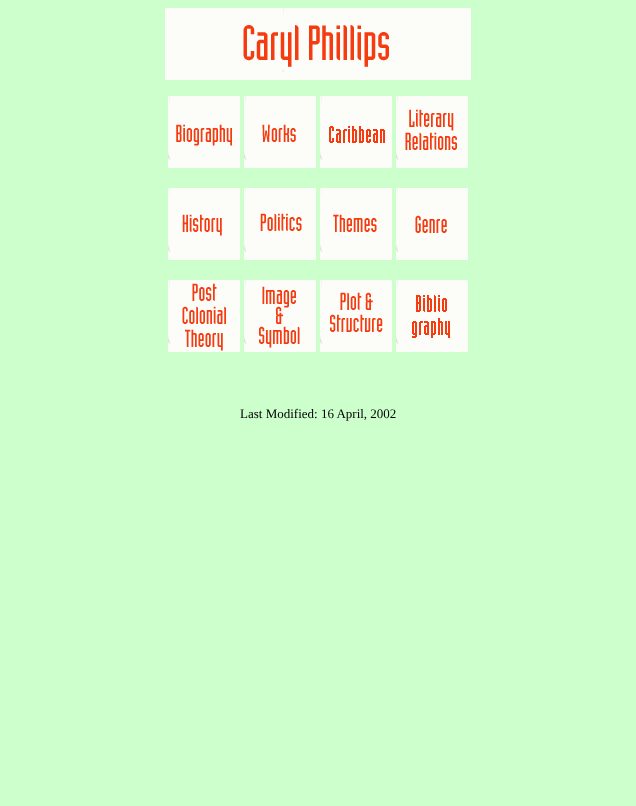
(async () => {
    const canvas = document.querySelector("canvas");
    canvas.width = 636;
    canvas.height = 806;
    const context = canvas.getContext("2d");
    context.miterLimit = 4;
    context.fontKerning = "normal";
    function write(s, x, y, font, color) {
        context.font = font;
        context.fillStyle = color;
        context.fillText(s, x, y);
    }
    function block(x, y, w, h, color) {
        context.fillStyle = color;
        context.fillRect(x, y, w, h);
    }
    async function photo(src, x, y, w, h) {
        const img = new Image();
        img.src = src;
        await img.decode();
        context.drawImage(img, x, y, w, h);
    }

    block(0, 0, 636, 806, "rgb(204, 255, 204)");
    await photo("media/1.png", 165, 8, 306, 72);
    await photo("media/2.png", 168, 96, 72, 72);
    await photo("media/3.png", 244, 96, 72, 72);
    await photo("media/4.png", 320, 96, 72, 72);
    await photo("media/5.png", 396, 96, 72, 72);
    await photo("media/6.png", 168, 188, 72, 72);
    await photo("media/7.png", 244, 188, 72, 72);
    await photo("media/8.png", 320, 188, 72, 72);
    await photo("media/9.png", 396, 188, 72, 72);
    await photo("media/10.png", 168, 280, 72, 72);
    await photo("media/11.png", 244, 280, 72, 72);
    await photo("media/12.png", 320, 280, 72, 72);
    await photo("media/13.png", 396, 280, 72, 72);
    write("Last Modified: 16 April, 2002", 240, 418, "13px Liberation Serif", "rgb(0, 0, 0)");
})();
